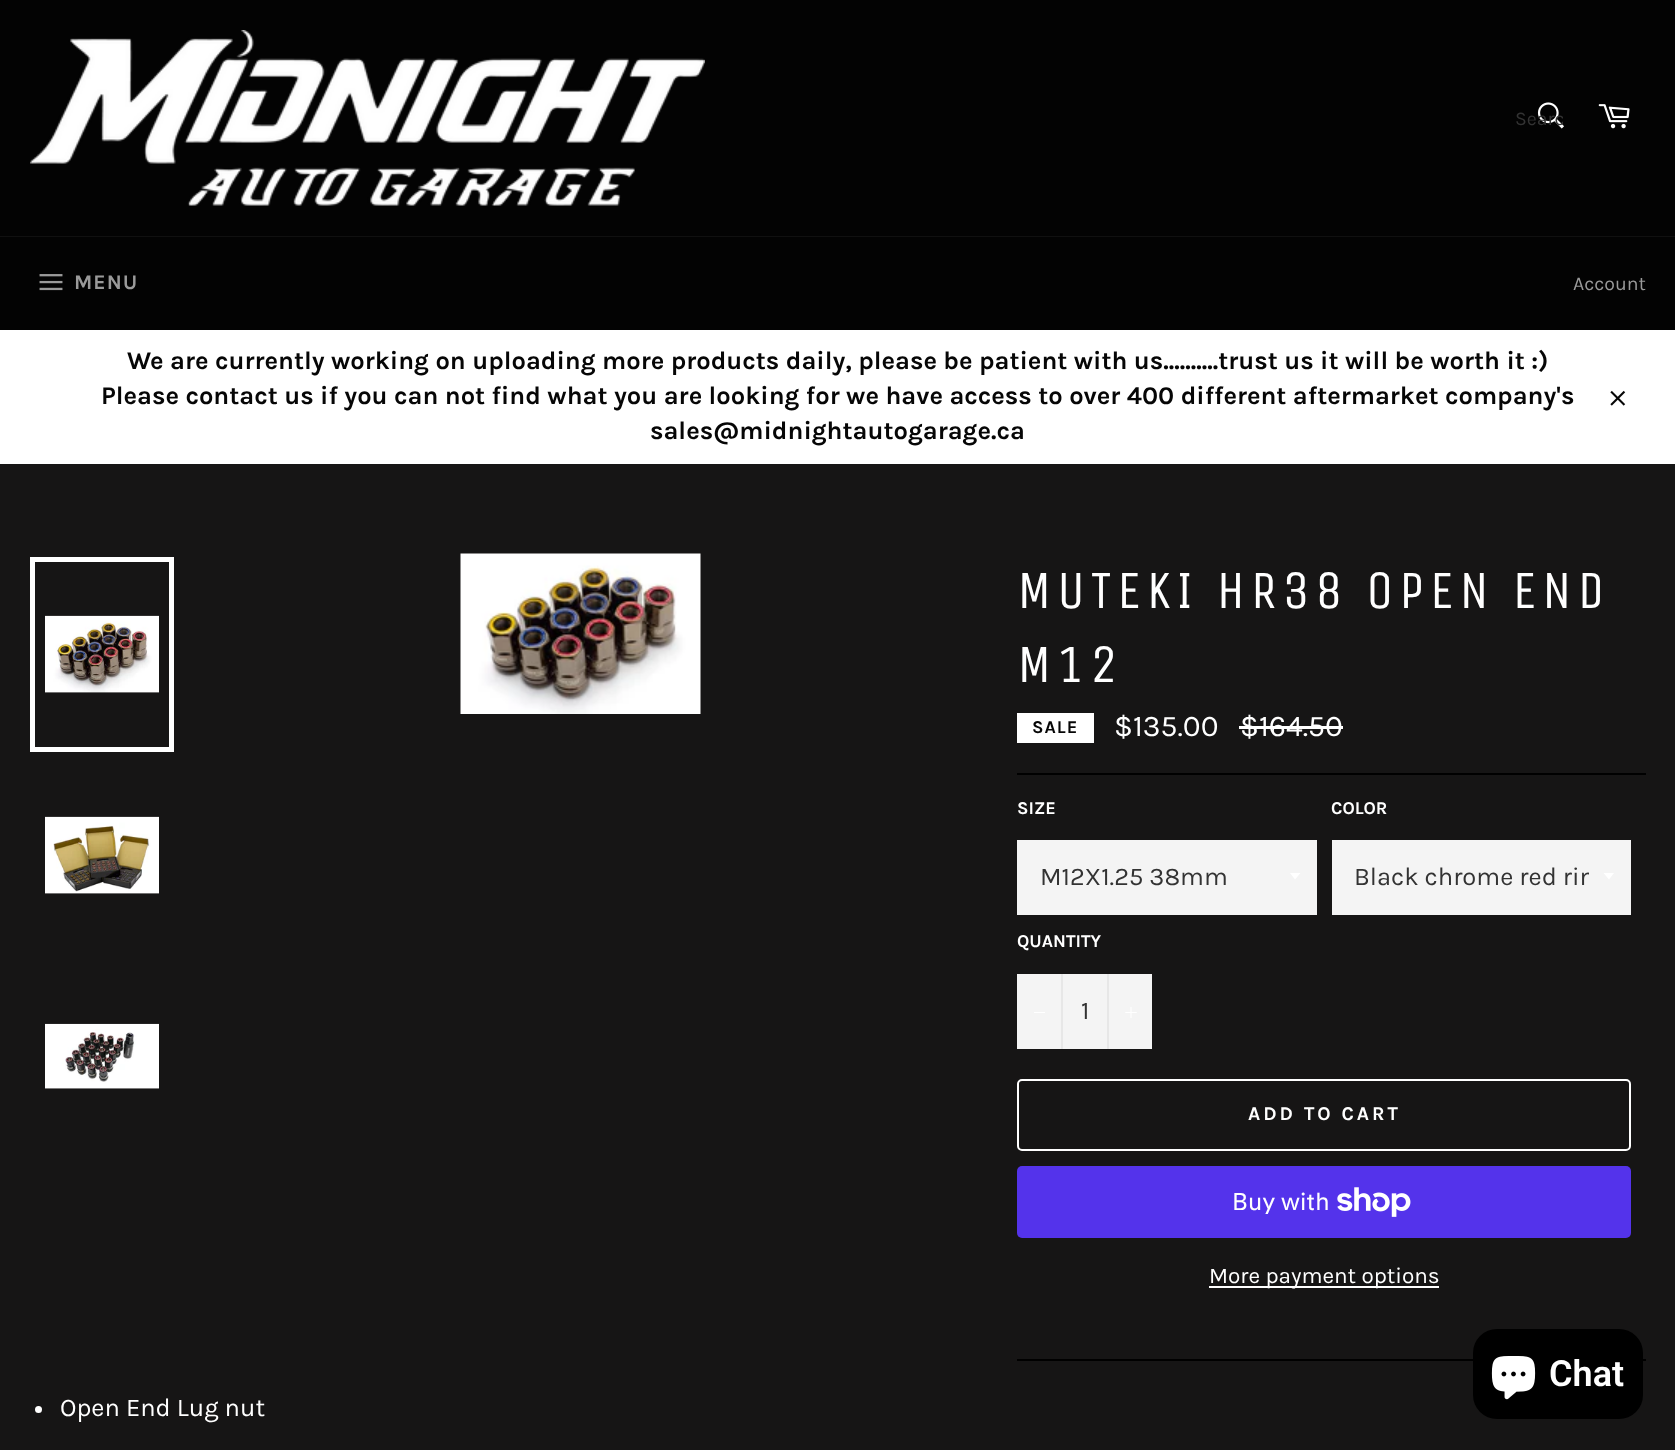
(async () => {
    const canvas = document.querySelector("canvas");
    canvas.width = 1675;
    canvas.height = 1450;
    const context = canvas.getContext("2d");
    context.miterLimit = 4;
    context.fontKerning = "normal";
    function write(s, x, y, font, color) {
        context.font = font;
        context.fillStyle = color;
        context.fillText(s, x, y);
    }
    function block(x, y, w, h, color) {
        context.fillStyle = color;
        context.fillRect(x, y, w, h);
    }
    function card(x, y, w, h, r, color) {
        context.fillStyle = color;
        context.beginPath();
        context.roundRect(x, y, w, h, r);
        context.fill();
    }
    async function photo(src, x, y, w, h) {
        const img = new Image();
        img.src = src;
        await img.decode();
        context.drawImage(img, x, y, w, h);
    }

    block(0, 0, 1675, 1450, "rgb(3, 3, 3)");
    await photo("media/1.png", 30, 30, 675, 176);
    await photo("media/2.png", 1537, 102, 27, 27);
    context.save();
    context.beginPath();
    context.rect(1515, 107, 48, 22);
    context.clip();
    write("Searc", 1515, 125, "19.5px Karla", "rgb(51, 51, 51)");
    context.restore();
    await photo("media/3.png", 1598, 104, 32, 25);
    block(0, 236, 1675, 1, "rgb(16, 16, 16)");
    await photo("media/4.png", 39, 274, 24, 17);
    context.letterSpacing = "1px";
    write("MENU", 74, 289, "bold 21px Karla", "rgb(154, 154, 154)");
    context.letterSpacing = "0px";
    write("Account", 1573, 290, "19.5px Karla", "rgb(154, 154, 154)");
    block(0, 330, 1675, 134, "rgb(255, 255, 255)");
    write("We are currently working on uploading more products daily, please be patient with us..........trust us it will be worth it :)", 127, 369, "bold 25.5px Karla", "rgb(6, 6, 6)");
    write("Please contact us if you can not find what you are looking for we have access to over 400 different aftermarket company's", 101, 404, "bold 25.5px Karla", "rgb(6, 6, 6)");
    write("sales@midnightautogarage.ca", 650, 439, "bold 25.5px Karla", "rgb(6, 6, 6)");
    await photo("media/5.png", 1610, 390, 16, 16);
    block(0, 464, 1675, 986, "rgb(22, 21, 21)");
    await photo("media/6.png", 45, 615, 114, 78);
    context.strokeStyle = "rgb(255, 255, 255)";
    context.lineWidth = 5;
    context.strokeRect(32.5, 559.5, 139, 190);
    await photo("media/7.png", 45, 816, 114, 78);
    await photo("media/8.png", 45, 1023, 114, 66);
    await photo("media/9.png", 460, 553, 241, 161);
    context.letterSpacing = "5.4px";
    write("MUTEKI HR38 OPEN END", 1017, 608, "54px Unica One", "rgb(255, 255, 255)");
    write("M12", 1017, 682, "54px Unica One", "rgb(255, 255, 255)");
    block(1017, 713, 77, 30, "rgb(255, 255, 255)");
    context.letterSpacing = "1px";
    write("SALE", 1032, 733, "bold 18px Karla", "rgb(6, 6, 6)");
    context.letterSpacing = "0px";
    write("$135.00", 1114, 736, "30px Karla", "rgb(255, 255, 255)");
    write("$164.50", 1240, 736, "30px Karla", "rgb(255, 255, 255)");
    block(1239, 726, 104, 3, "rgb(255, 255, 255)");
    block(1017, 773, 629, 2, "rgb(0, 0, 0)");
    write("SIZE", 1017, 814, "bold 18px Karla", "rgb(255, 255, 255)");
    block(1017, 840, 300, 75, "rgb(244, 244, 244)");
    context.fillStyle = "rgb(255, 255, 255)";
    context.beginPath();
    context.moveTo(1290, 873);
    context.lineTo(1295, 879.5);
    context.lineTo(1300.5, 873);
    context.closePath();
    context.fill();
    write("M12X1.25 38mm", 1040, 885, "25.5px Karla", "rgb(51, 51, 51)");
    write("COLOR", 1331, 814, "bold 18px Karla", "rgb(255, 255, 255)");
    block(1332, 840, 299, 75, "rgb(244, 244, 244)");
    context.fillStyle = "rgb(255, 255, 255)";
    context.beginPath();
    context.moveTo(1603.5, 873);
    context.lineTo(1609, 879.5);
    context.lineTo(1614, 873);
    context.closePath();
    context.fill();
    context.save();
    context.beginPath();
    context.rect(1355, 860, 234, 36);
    context.clip();
    write("Black chrome red rin", 1354, 885, "25.5px Karla", "rgb(51, 51, 51)");
    context.restore();
    write("QUANTITY", 1017, 947, "bold 18px Karla", "rgb(255, 255, 255)");
    block(1017, 974, 135, 75, "rgb(244, 244, 244)");
    block(1061, 974, 2, 75, "rgb(231, 231, 231)");
    block(1034, 1012, 11, 1, "rgb(255, 255, 255)");
    write("1", 1081, 1019, "25.5px Karla", "rgb(51, 51, 51)");
    block(1107, 974, 2, 75, "rgb(231, 231, 231)");
    await photo("media/10.png", 1125, 1007, 12, 11);
    context.beginPath();
    context.roundRect(1018, 1080, 612, 70, 4);
    context.lineWidth = 2;
    context.stroke();
    context.letterSpacing = "3px";
    write("ADD TO CART", 1248, 1120, "bold 19.5px Karla", "rgb(255, 255, 255)");
    card(1017, 1166, 614, 72, 5, "rgb(84, 51, 235)");
    context.letterSpacing = "0px";
    write("Buy with", 1232, 1210, "24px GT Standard", "rgb(255, 255, 255)");
    await photo("media/11.png", 1337, 1187, 74, 30);
    block(1209, 1286, 230, 2, "rgb(255, 255, 255)");
    write("More payment options", 1209, 1283, "22.5px Karla", "rgb(255, 255, 255)");
    block(1017, 1359, 629, 2, "rgb(0, 0, 0)");
    context.fillStyle = "rgb(255, 255, 255)";
    context.beginPath();
    context.arc(38.5, 1409.5, 3.5, 0, Math.PI * 2);
    context.fill();
    write("Open End Lug nut", 60, 1416, "25.5px Karla", "rgb(255, 255, 255)");
    card(1473, 1329, 170, 90, 24, "rgb(0, 0, 0)");
    await photo("media/12.png", 1491, 1356, 45, 44);
    write("Chat", 1549, 1386, "600 36px Roboto", "rgb(255, 255, 255)");
})();
